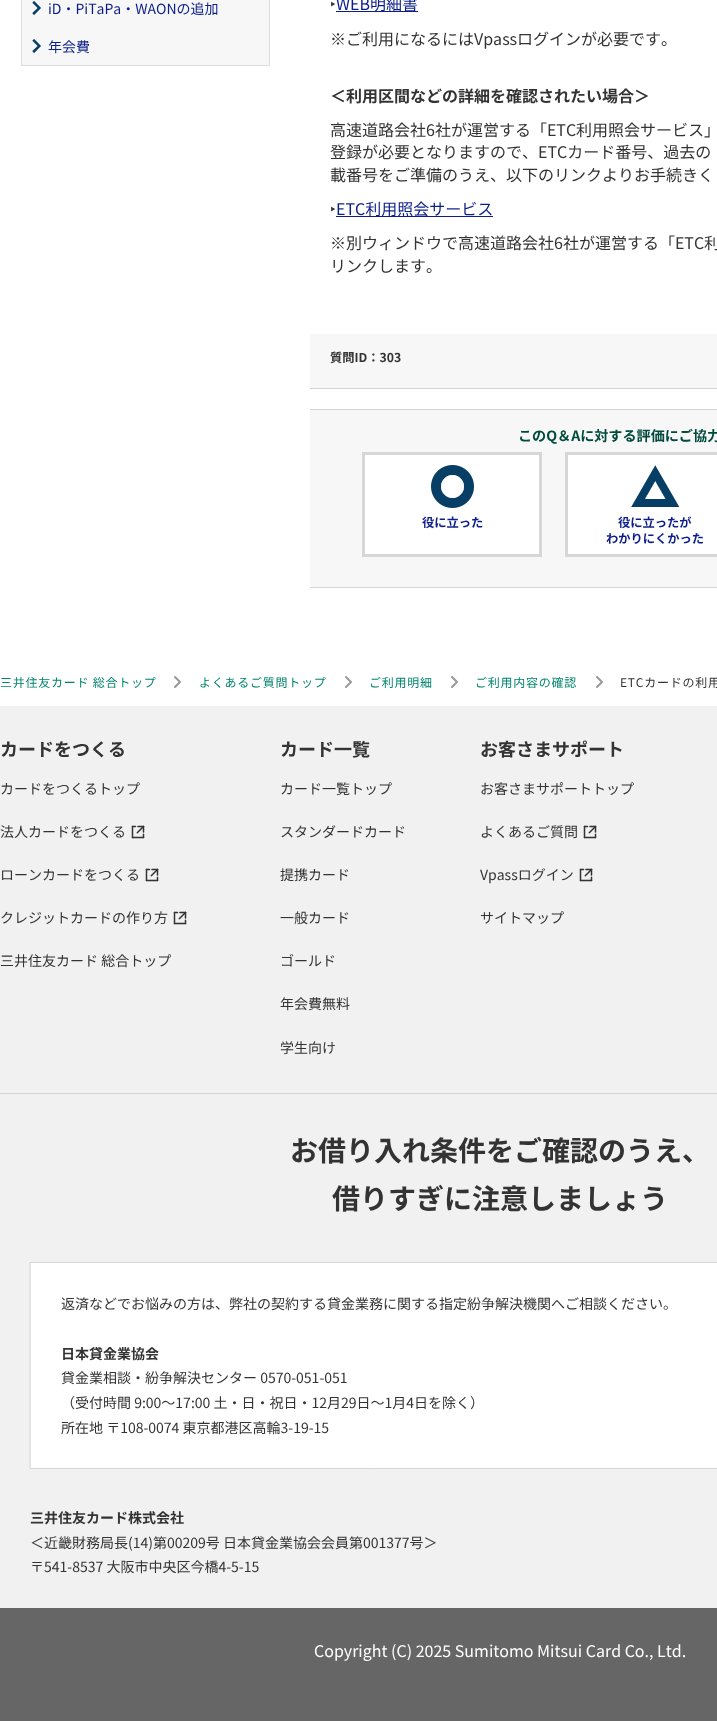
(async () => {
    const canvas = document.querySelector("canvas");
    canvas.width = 717;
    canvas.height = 1721;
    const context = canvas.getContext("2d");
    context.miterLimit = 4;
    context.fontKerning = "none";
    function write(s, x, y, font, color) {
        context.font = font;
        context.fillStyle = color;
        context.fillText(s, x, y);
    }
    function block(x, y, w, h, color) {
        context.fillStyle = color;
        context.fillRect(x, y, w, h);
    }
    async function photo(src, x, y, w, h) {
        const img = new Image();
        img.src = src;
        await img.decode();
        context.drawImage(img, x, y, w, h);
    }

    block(0, 0, 717, 1721, "rgb(255, 255, 255)");
    block(269, 0, 1, 66, "rgb(221, 221, 221)");
    block(21, 65, 249, 1, "rgb(221, 221, 221)");
    block(21, 0, 1, 66, "rgb(221, 221, 221)");
    block(22, 0, 247, 65, "rgb(247, 247, 247)");
    await photo("media/1.png", 32, 1, 9, 14);
    write("iD・PiTaPa・WAONの追加", 48, 14, "14px Noto Sans JP", "rgb(12, 30, 137)");
    await photo("media/1.png", 32, 39, 9, 14);
    write("年会費", 48, 52, "14px Noto Sans JP", "rgb(12, 30, 137)");
    write("‣", 330, 10, "16px Noto Sans", "rgb(51, 51, 51)");
    block(336, 11, 82, 1, "rgb(12, 30, 137)");
    write("WEB明細書", 336, 10, "16px Noto Sans JP", "rgb(12, 30, 137)");
    write("※ご利用になるにはVpassログインが必要です。", 330, 45, "16px Noto Sans JP", "rgb(51, 51, 51)");
    write("＜利用区間などの詳細を確認されたい場合＞", 330, 102, "bold 16px Noto Sans JP", "rgb(51, 51, 51)");
    write("高速道路会社6社が運営する「ETC利用照会サービス」", 330, 136, "16px Noto Sans JP", "rgb(51, 51, 51)");
    write("登録が必要となりますので、ETCカード番号、過去の", 330, 158, "16px Noto Sans JP", "rgb(51, 51, 51)");
    write("載番号をご準備のうえ、以下のリンクよりお手続きく", 330, 181, "16px Noto Sans JP", "rgb(51, 51, 51)");
    write("‣", 330, 215, "16px Noto Sans", "rgb(51, 51, 51)");
    block(336, 216, 157, 1, "rgb(12, 30, 137)");
    write("ETC利用照会サービス", 336, 215, "16px Noto Sans JP", "rgb(12, 30, 137)");
    write("※別ウィンドウで高速道路会社6社が運営する「ETC利", 330, 249, "16px Noto Sans JP", "rgb(51, 51, 51)");
    write("リンクします。", 330, 272, "16px Noto Sans JP", "rgb(51, 51, 51)");
    block(310, 334, 407, 54, "rgb(247, 247, 247)");
    block(310, 388, 407, 1, "rgb(212, 212, 212)");
    write("質問ID：303", 330, 362, "bold 12.25px Noto Sans JP", "rgb(51, 51, 51)");
    block(310, 410, 407, 177, "rgb(247, 247, 247)");
    block(310, 409, 407, 1, "rgb(212, 212, 212)");
    block(310, 587, 407, 1, "rgb(212, 212, 212)");
    write("このQ＆Aに対する評価にご協力", 518, 441, "bold 14.1px Noto Sans JP", "rgb(0, 74, 60)");
    context.fillStyle = "rgb(255, 255, 255)";
    context.beginPath();
    context.rect(363.5, 453.5, 177, 102);
    context.fill();
    context.strokeStyle = "rgb(215, 215, 215)";
    context.lineWidth = 3;
    context.stroke();
    await photo("media/2.png", 431, 465, 43, 43);
    write("役に立った", 422, 527, "bold 12.25px Noto Sans JP", "rgb(12, 30, 137)");
    context.fillStyle = "rgb(255, 255, 255)";
    context.beginPath();
    context.rect(566.5, 453.5, 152, 102);
    context.fill();
    context.stroke();
    await photo("media/3.png", 631, 465, 48, 42);
    write("役に立ったが", 618, 527, "bold 12.25px Noto Sans JP", "rgb(12, 30, 137)");
    write("わかりにくかった", 606, 543, "bold 12.25px Noto Sans JP", "rgb(12, 30, 137)");
    context.letterSpacing = "0.75px";
    write("三井住友カード 総合トップ", 0, 687, "12px Noto Sans JP", "rgb(0, 132, 109)");
    context.beginPath();
    context.moveTo(175, 677);
    context.lineTo(180, 682);
    context.lineTo(175, 687);
    context.strokeStyle = "rgb(153, 153, 153)";
    context.lineWidth = 2;
    context.lineCap = "round";
    context.lineJoin = "round";
    context.stroke();
    write("よくあるご質問トップ", 199, 687, "12px Noto Sans JP", "rgb(0, 132, 109)");
    context.beginPath();
    context.moveTo(346, 677);
    context.lineTo(351, 682);
    context.lineTo(346, 687);
    context.stroke();
    write("ご利用明細", 369, 687, "12px Noto Sans JP", "rgb(0, 132, 109)");
    context.beginPath();
    context.moveTo(452, 677);
    context.lineTo(457, 682);
    context.lineTo(452, 687);
    context.stroke();
    write("ご利用内容の確認", 475, 687, "12px Noto Sans JP", "rgb(0, 132, 109)");
    context.beginPath();
    context.moveTo(597, 677);
    context.lineTo(602, 682);
    context.lineTo(597, 687);
    context.stroke();
    write("ETCカードの利用", 620, 687, "12px Noto Sans JP", "rgb(51, 51, 51)");
    block(0, 706, 717, 387, "rgb(241, 241, 241)");
    block(0, 1093, 717, 1, "rgb(213, 213, 213)");
    context.letterSpacing = "0px";
    write("カードをつくる", 0, 756, "bold 18px Noto Sans JP", "rgb(51, 51, 51)");
    write("カードをつくるトップ", 0, 794, "14px Noto Sans JP", "rgb(51, 51, 51)");
    write("法人カードをつくる", 0, 837, "14px Noto Sans JP", "rgb(51, 51, 51)");
    await photo("media/4.png", 131, 825, 14, 14);
    write("ローンカードをつくる", 0, 880, "14px Noto Sans JP", "rgb(51, 51, 51)");
    await photo("media/4.png", 145, 868, 14, 14);
    write("クレジットカードの作り方", 0, 923, "14px Noto Sans JP", "rgb(51, 51, 51)");
    await photo("media/4.png", 173, 911, 14, 14);
    write("三井住友カード 総合トップ", 0, 966, "14px Noto Sans JP", "rgb(51, 51, 51)");
    write("カード一覧", 280, 756, "bold 18px Noto Sans JP", "rgb(51, 51, 51)");
    write("カード一覧トップ", 280, 794, "14px Noto Sans JP", "rgb(51, 51, 51)");
    write("スタンダードカード", 280, 837, "14px Noto Sans JP", "rgb(51, 51, 51)");
    write("提携カード", 280, 880, "14px Noto Sans JP", "rgb(51, 51, 51)");
    write("一般カード", 280, 923, "14px Noto Sans JP", "rgb(51, 51, 51)");
    write("ゴールド", 280, 966, "14px Noto Sans JP", "rgb(51, 51, 51)");
    write("年会費無料", 280, 1009, "14px Noto Sans JP", "rgb(51, 51, 51)");
    write("学生向け", 280, 1053, "14px Noto Sans JP", "rgb(51, 51, 51)");
    write("お客さまサポート", 480, 756, "bold 18px Noto Sans JP", "rgb(51, 51, 51)");
    write("お客さまサポートトップ", 480, 794, "14px Noto Sans JP", "rgb(51, 51, 51)");
    write("よくあるご質問", 480, 837, "14px Noto Sans JP", "rgb(51, 51, 51)");
    await photo("media/4.png", 583, 825, 14, 14);
    write("Vpassログイン", 480, 880, "14px Noto Sans JP", "rgb(51, 51, 51)");
    await photo("media/4.png", 579, 868, 14, 14);
    write("サイトマップ", 480, 923, "14px Noto Sans JP", "rgb(51, 51, 51)");
    block(0, 1094, 717, 514, "rgb(241, 241, 241)");
    write("お借り入れ条件をご確認のうえ、", 290, 1161, "bold 28px Noto Sans JP", "rgb(51, 51, 51)");
    write("借りすぎに注意しましょう", 332, 1209, "bold 28px Noto Sans JP", "rgb(51, 51, 51)");
    context.fillStyle = "rgb(255, 255, 255)";
    context.beginPath();
    context.rect(30.5, 1262.5, 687, 206);
    context.fill();
    context.strokeStyle = "rgb(213, 213, 213)";
    context.lineWidth = 1;
    context.lineJoin = "miter";
    context.stroke();
    write("返済などでお悩みの方は、弊社の契約する貸金業務に関する指定紛争解決機関へご相談ください。", 61, 1309, "14px Noto Sans JP", "rgb(51, 51, 51)");
    write("日本貸金業協会", 61, 1359, "bold 14px Noto Sans JP", "rgb(51, 51, 51)");
    write("貸金業相談・紛争解決センター 0570-051-051", 61, 1383, "14px Noto Sans JP", "rgb(51, 51, 51)");
    write("（受付時間 9:00～17:00 土・日・祝日・12月29日～1月4日を除く）", 61, 1408, "14px Noto Sans JP", "rgb(51, 51, 51)");
    write("所在地 〒108-0074 東京都港区高輪3-19-15", 61, 1433, "14px Noto Sans JP", "rgb(51, 51, 51)");
    write("三井住友カード株式会社", 30, 1523, "bold 14px Noto Sans JP", "rgb(51, 51, 51)");
    write("＜近畿財務局長(14)第00209号 日本貸金業協会会員第001377号＞", 30, 1548, "14px Noto Sans JP", "rgb(51, 51, 51)");
    write("〒541-8537 大阪市中央区今橋4-5-15", 30, 1572, "14px Noto Sans JP", "rgb(51, 51, 51)");
    block(0, 1608, 717, 113, "rgb(102, 102, 102)");
    write("Copyright (C) 2025 Sumitomo Mitsui Card Co., Ltd.", 314, 1657, "16px Noto Sans JP", "rgb(255, 255, 255)");
})();
